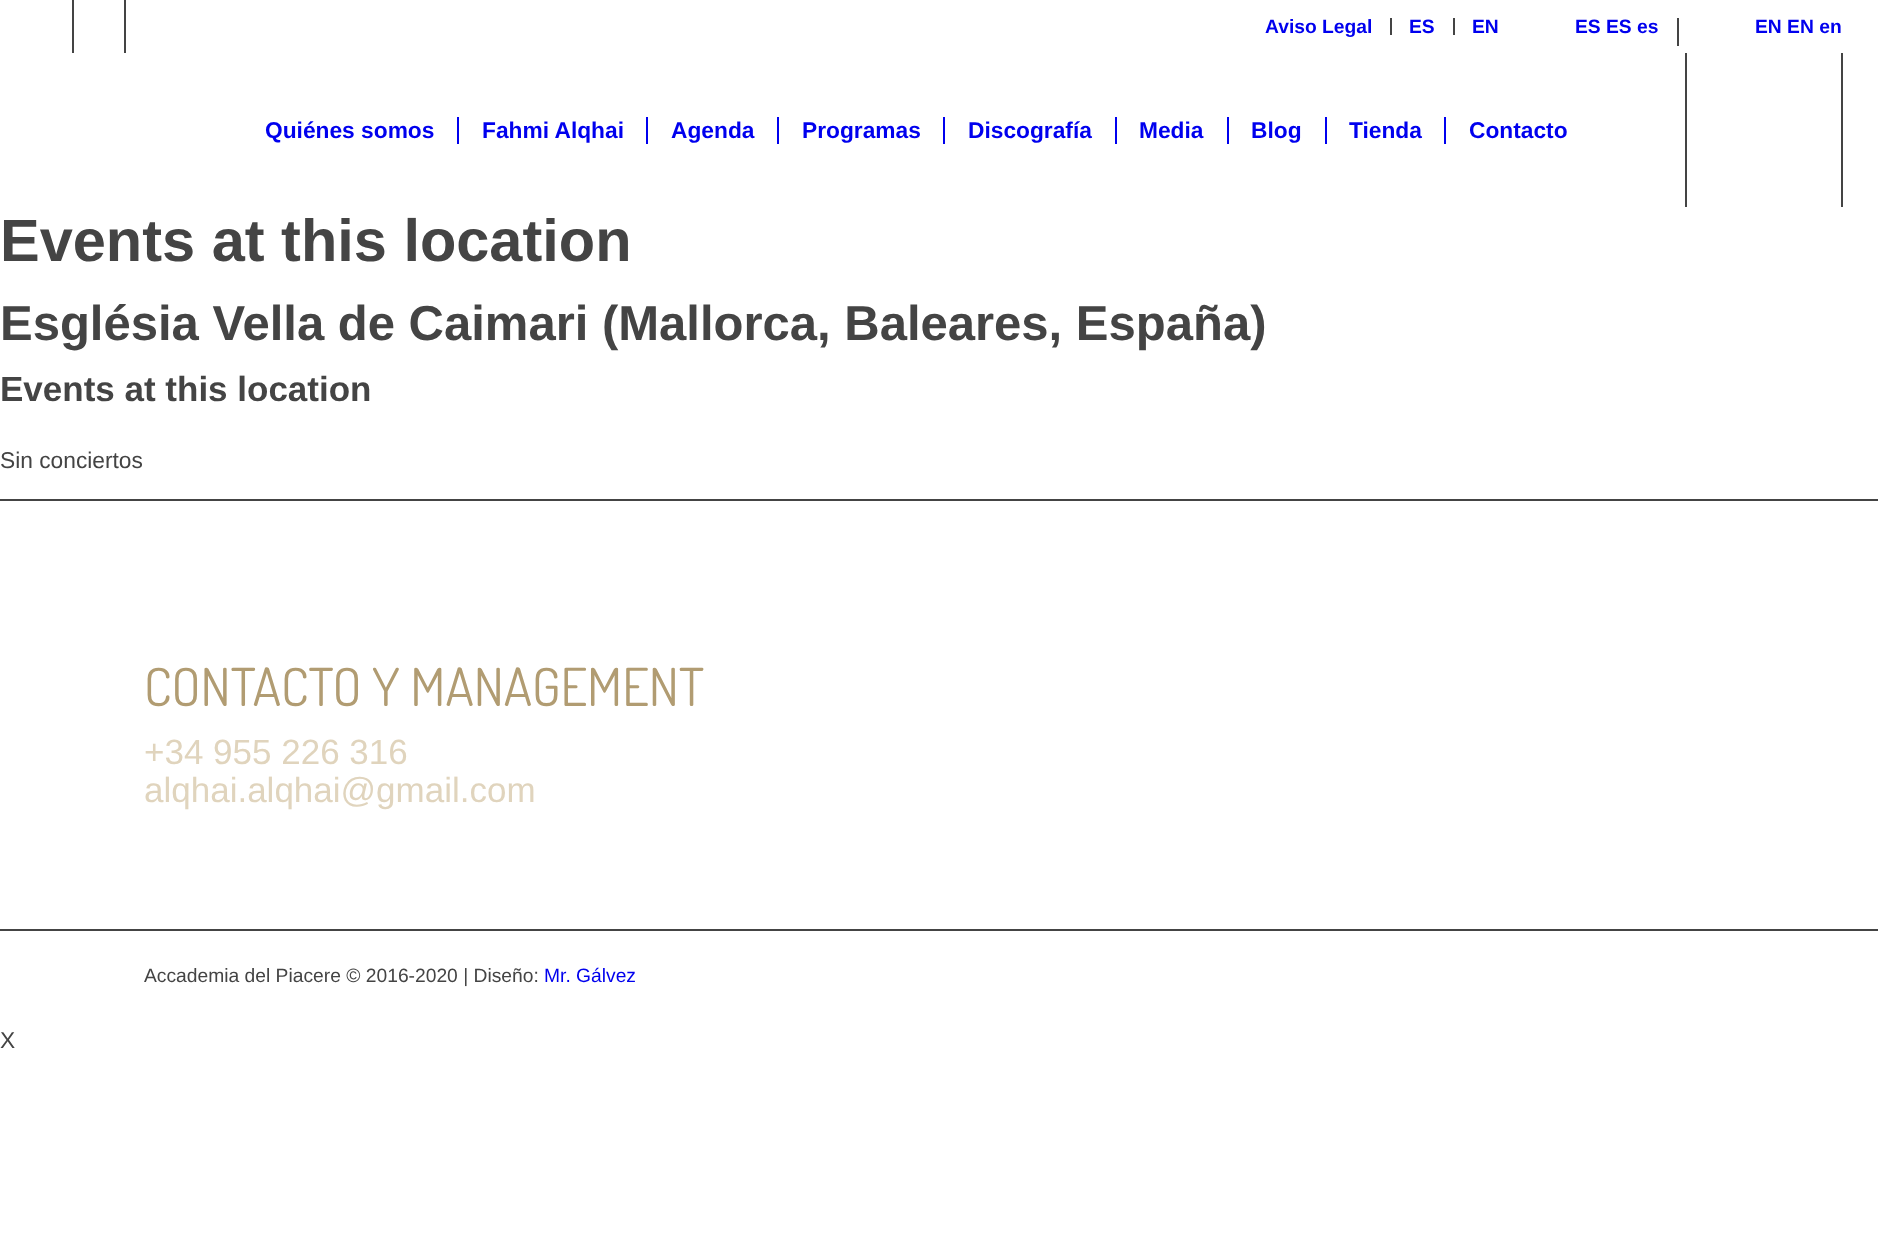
(async () => {
    const canvas = document.querySelector("canvas");
    canvas.width = 1878;
    canvas.height = 1258;
    const context = canvas.getContext("2d");
    context.miterLimit = 4;
    context.fontKerning = "normal";
    function write(s, x, y, font, color) {
        context.font = font;
        context.fillStyle = color;
        context.fillText(s, x, y);
    }
    function block(x, y, w, h, color) {
        context.fillStyle = color;
        context.fillRect(x, y, w, h);
    }

    block(0, 0, 1878, 1258, "rgb(255, 255, 255)");
    block(72, 0, 2, 53, "rgb(68, 68, 68)");
    block(124, 0, 2, 53, "rgb(68, 68, 68)");
    block(1390, 18, 2, 17, "rgb(68, 68, 68)");
    write("Aviso Legal", 1265, 33, "bold 19.25px Liberation Sans", "rgb(0, 0, 238)");
    block(1453, 18, 2, 17, "rgb(68, 68, 68)");
    write("ES", 1409, 33, "bold 19.25px Liberation Sans", "rgb(0, 0, 238)");
    write("EN", 1472, 33, "bold 19.25px Liberation Sans", "rgb(0, 0, 238)");
    block(1677, 18, 2, 28, "rgb(68, 68, 68)");
    write("ES ES es", 1575, 33, "bold 19.25px Liberation Sans", "rgb(0, 0, 238)");
    write("EN EN en", 1755, 33, "bold 19.25px Liberation Sans", "rgb(0, 0, 238)");
    write("Quiénes somos", 265, 138, "bold 22.75px Liberation Sans", "rgb(0, 0, 238)");
    write("Fahmi Alqhai", 482, 138, "bold 22.75px Liberation Sans", "rgb(0, 0, 238)");
    block(457, 117, 2, 27, "rgb(0, 0, 238)");
    write("Agenda", 671, 138, "bold 22.75px Liberation Sans", "rgb(0, 0, 238)");
    block(646, 117, 2, 27, "rgb(0, 0, 238)");
    write("Programas", 802, 138, "bold 22.75px Liberation Sans", "rgb(0, 0, 238)");
    block(777, 117, 2, 27, "rgb(0, 0, 238)");
    write("Discografía", 968, 138, "bold 22.75px Liberation Sans", "rgb(0, 0, 238)");
    block(943, 117, 2, 27, "rgb(0, 0, 238)");
    write("Media", 1139, 138, "bold 22.75px Liberation Sans", "rgb(0, 0, 238)");
    block(1115, 117, 2, 27, "rgb(0, 0, 238)");
    write("Blog", 1251, 138, "bold 22.75px Liberation Sans", "rgb(0, 0, 238)");
    block(1227, 117, 2, 27, "rgb(0, 0, 238)");
    write("Tienda", 1349, 138, "bold 22.75px Liberation Sans", "rgb(0, 0, 238)");
    block(1325, 117, 2, 27, "rgb(0, 0, 238)");
    write("Contacto", 1469, 138, "bold 22.75px Liberation Sans", "rgb(0, 0, 238)");
    block(1444, 117, 2, 27, "rgb(0, 0, 238)");
    block(1841, 53, 2, 154, "rgb(68, 68, 68)");
    block(1685, 53, 2, 154, "rgb(68, 68, 68)");
    write("Events at this location", 0, 261, "bold 59.5px Liberation Sans", "rgb(68, 68, 68)");
    write("Església Vella de Caimari (Mallorca, Baleares, España)", 0, 340, "bold 49px Liberation Sans", "rgb(68, 68, 68)");
    write("Events at this location", 0, 401, "bold 35px Liberation Sans", "rgb(68, 68, 68)");
    write("Sin conciertos", 0, 468, "22.75px Liberation Sans", "rgb(68, 68, 68)");
    block(0, 499, 1878, 2, "rgb(68, 68, 68)");
    write("CONTACTO Y MANAGEMENT", 144, 706, "52.5px Dosis", "rgb(177, 156, 114)");
    write("+34 955 226 316", 144, 764, "35px Liberation Sans", "rgb(224, 212, 189)");
    write("alqhai.alqhai@gmail.com", 144, 802, "35px Liberation Sans", "rgb(224, 212, 189)");
    block(0, 929, 1878, 2, "rgb(68, 68, 68)");
    write("Accademia del Piacere © 2016-2020 | Diseño:", 144, 982, "19.25px Liberation Sans", "rgb(68, 68, 68)");
    write("Mr. Gálvez", 544, 982, "19.25px Liberation Sans", "rgb(0, 0, 238)");
    write("X", 0, 1048, "22.75px Liberation Sans", "rgb(68, 68, 68)");
})();
